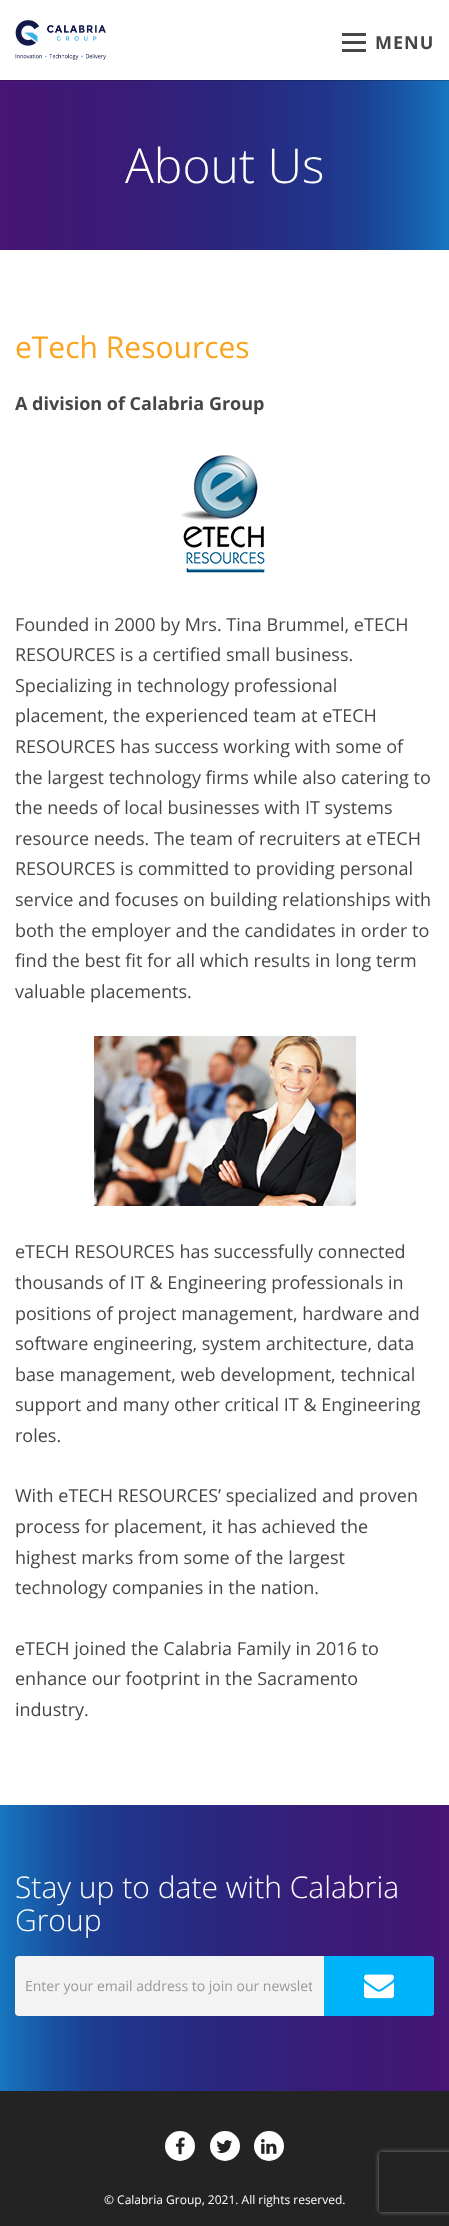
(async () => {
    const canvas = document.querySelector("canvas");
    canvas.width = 449;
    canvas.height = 2226;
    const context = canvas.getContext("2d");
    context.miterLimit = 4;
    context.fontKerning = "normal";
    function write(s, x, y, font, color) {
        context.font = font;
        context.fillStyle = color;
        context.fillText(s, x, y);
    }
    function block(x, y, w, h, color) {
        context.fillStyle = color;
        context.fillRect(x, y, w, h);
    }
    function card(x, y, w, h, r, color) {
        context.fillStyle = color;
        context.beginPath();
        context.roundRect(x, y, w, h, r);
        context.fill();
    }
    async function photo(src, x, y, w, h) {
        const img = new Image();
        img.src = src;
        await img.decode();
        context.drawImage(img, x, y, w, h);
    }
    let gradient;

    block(0, 0, 449, 2226, "rgb(255, 255, 255)");
    gradient = context.createLinearGradient(0, 165, 449, 165);
    gradient.addColorStop(0, "rgb(71, 21, 118)");
    gradient.addColorStop(0.02, "rgb(71, 21, 118)");
    gradient.addColorStop(0.02, "rgb(68, 21, 117)");
    gradient.addColorStop(0.1, "rgb(67, 23, 118)");
    gradient.addColorStop(0.1, "rgb(64, 23, 117)");
    gradient.addColorStop(0.14, "rgb(62, 25, 118)");
    gradient.addColorStop(0.24, "rgb(60, 26, 120)");
    gradient.addColorStop(0.31, "rgb(54, 29, 120)");
    gradient.addColorStop(0.38, "rgb(52, 33, 123)");
    gradient.addColorStop(0.38, "rgb(49, 33, 122)");
    gradient.addColorStop(0.39, "rgb(50, 33, 125)");
    gradient.addColorStop(0.41, "rgb(49, 35, 123)");
    gradient.addColorStop(0.45, "rgb(46, 35, 127)");
    gradient.addColorStop(0.47, "rgb(46, 37, 126)");
    gradient.addColorStop(0.47, "rgb(43, 37, 125)");
    gradient.addColorStop(0.52, "rgb(42, 39, 126)");
    gradient.addColorStop(0.52, "rgb(43, 40, 129)");
    gradient.addColorStop(0.54, "rgb(41, 41, 127)");
    gradient.addColorStop(0.55, "rgb(41, 43, 130)");
    gradient.addColorStop(0.56, "rgb(41, 43, 130)");
    gradient.addColorStop(0.56, "rgb(38, 42, 129)");
    gradient.addColorStop(0.61, "rgb(38, 45, 133)");
    gradient.addColorStop(0.66, "rgb(33, 49, 134)");
    gradient.addColorStop(0.68, "rgb(35, 51, 138)");
    gradient.addColorStop(0.72, "rgb(32, 52, 138)");
    gradient.addColorStop(0.78, "rgb(30, 61, 144)");
    gradient.addColorStop(0.8, "rgb(29, 61, 144)");
    gradient.addColorStop(0.8, "rgb(28, 65, 146)");
    gradient.addColorStop(0.82, "rgb(28, 66, 147)");
    gradient.addColorStop(0.82, "rgb(29, 67, 150)");
    gradient.addColorStop(0.82, "rgb(27, 68, 148)");
    gradient.addColorStop(0.84, "rgb(27, 72, 155)");
    gradient.addColorStop(0.85, "rgb(26, 73, 153)");
    gradient.addColorStop(0.85, "rgb(26, 75, 154)");
    gradient.addColorStop(0.85, "rgb(27, 75, 157)");
    gradient.addColorStop(0.86, "rgb(25, 76, 155)");
    gradient.addColorStop(0.86, "rgb(26, 77, 158)");
    gradient.addColorStop(0.86, "rgb(26, 77, 156)");
    gradient.addColorStop(0.86, "rgb(27, 78, 159)");
    gradient.addColorStop(0.87, "rgb(24, 79, 159)");
    gradient.addColorStop(0.88, "rgb(25, 80, 160)");
    gradient.addColorStop(0.89, "rgb(26, 84, 165)");
    gradient.addColorStop(0.89, "rgb(25, 84, 162)");
    gradient.addColorStop(0.9, "rgb(26, 87, 167)");
    gradient.addColorStop(0.91, "rgb(24, 90, 168)");
    gradient.addColorStop(0.92, "rgb(24, 95, 173)");
    gradient.addColorStop(0.93, "rgb(23, 95, 171)");
    gradient.addColorStop(0.93, "rgb(25, 98, 175)");
    gradient.addColorStop(0.94, "rgb(23, 99, 175)");
    gradient.addColorStop(0.95, "rgb(23, 105, 181)");
    gradient.addColorStop(0.96, "rgb(22, 104, 178)");
    gradient.addColorStop(0.96, "rgb(23, 105, 181)");
    gradient.addColorStop(0.96, "rgb(23, 106, 182)");
    gradient.addColorStop(0.96, "rgb(23, 107, 180)");
    gradient.addColorStop(0.96, "rgb(24, 107, 183)");
    gradient.addColorStop(0.97, "rgb(22, 108, 181)");
    gradient.addColorStop(0.98, "rgb(24, 112, 186)");
    gradient.addColorStop(0.98, "rgb(22, 112, 188)");
    gradient.addColorStop(0.99, "rgb(23, 115, 188)");
    gradient.addColorStop(0.99, "rgb(23, 117, 191)");
    gradient.addColorStop(1, "rgb(21, 118, 189)");
    gradient.addColorStop(1, "rgb(22, 118, 192)");
    context.fillStyle = gradient;
    context.fillRect(0, 80, 449, 170);
    context.save();
    context.beginPath();
    context.rect(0, 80, 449, 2);
    context.clip();
    context.fillStyle = "rgba(0, 0, 0, 0.2)";
    context.filter = "blur(0.5px)";
    context.beginPath();
    context.rect(-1, -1, 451, 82);
    context.fill();
    context.filter = "none";
    context.restore();
    await photo("media/1.png", 15, 20, 91, 40);
    block(342, 33, 24, 3, "rgb(70, 70, 70)");
    block(342, 41, 24, 3, "rgb(70, 70, 70)");
    context.letterSpacing = "1px";
    write("MENU", 375, 49, "bold 18px Open Sans", "rgb(70, 70, 70)");
    block(342, 49, 24, 3, "rgb(70, 70, 70)");
    context.letterSpacing = "0px";
    write("About Us", 125, 183, "300 48px Open Sans", "rgb(255, 255, 255)");
    write("eTech Resources", 15, 358, "30px Open Sans", "rgb(249, 164, 31)");
    write("A division of Calabria Group", 15, 410, "bold 18px Open Sans", "rgb(70, 70, 70)");
    await photo("media/2.png", 181, 455, 84, 118);
    write("Founded in 2000 by Mrs. Tina Brummel, eTECH", 15, 631, "18px Open Sans", "rgb(70, 70, 70)");
    write("RESOURCES is a certified small business.", 15, 661, "18px Open Sans", "rgb(70, 70, 70)");
    write("Specializing in technology professional", 15, 692, "18px Open Sans", "rgb(70, 70, 70)");
    write("placement, the experienced team at eTECH", 15, 722, "18px Open Sans", "rgb(70, 70, 70)");
    write("RESOURCES has success working with some of", 15, 753, "18px Open Sans", "rgb(70, 70, 70)");
    write("the largest technology firms while also catering to", 15, 784, "18px Open Sans", "rgb(70, 70, 70)");
    write("the needs of local businesses with IT systems", 15, 814, "18px Open Sans", "rgb(70, 70, 70)");
    write("resource needs. The team of recruiters at eTECH", 15, 845, "18px Open Sans", "rgb(70, 70, 70)");
    write("RESOURCES is committed to providing personal", 15, 875, "18px Open Sans", "rgb(70, 70, 70)");
    write("service and focuses on building relationships with", 15, 906, "18px Open Sans", "rgb(70, 70, 70)");
    write("both the employer and the candidates in order to", 15, 937, "18px Open Sans", "rgb(70, 70, 70)");
    write("find the best fit for all which results in long term", 15, 967, "18px Open Sans", "rgb(70, 70, 70)");
    write("valuable placements.", 15, 998, "18px Open Sans", "rgb(70, 70, 70)");
    await photo("media/3.png", 94, 1036, 262, 170);
    write("eTECH RESOURCES has successfully connected", 15, 1258, "18px Open Sans", "rgb(70, 70, 70)");
    write("thousands of IT & Engineering professionals in", 15, 1289, "18px Open Sans", "rgb(70, 70, 70)");
    write("positions of project management, hardware and", 15, 1320, "18px Open Sans", "rgb(70, 70, 70)");
    write("software engineering, system architecture, data", 15, 1350, "18px Open Sans", "rgb(70, 70, 70)");
    write("base management, web development, technical", 15, 1381, "18px Open Sans", "rgb(70, 70, 70)");
    write("support and many other critical IT & Engineering", 15, 1411, "18px Open Sans", "rgb(70, 70, 70)");
    write("roles.", 15, 1442, "18px Open Sans", "rgb(70, 70, 70)");
    write("With eTECH RESOURCES’ specialized and proven", 15, 1502, "18px Open Sans", "rgb(70, 70, 70)");
    write("process for placement, it has achieved the", 15, 1533, "18px Open Sans", "rgb(70, 70, 70)");
    write("highest marks from some of the largest", 15, 1564, "18px Open Sans", "rgb(70, 70, 70)");
    write("technology companies in the nation.", 15, 1594, "18px Open Sans", "rgb(70, 70, 70)");
    write("eTECH joined the Calabria Family in 2016 to", 15, 1655, "18px Open Sans", "rgb(70, 70, 70)");
    write("enhance our footprint in the Sacramento", 15, 1685, "18px Open Sans", "rgb(70, 70, 70)");
    write("industry.", 15, 1716, "18px Open Sans", "rgb(70, 70, 70)");
    gradient = context.createLinearGradient(0, 1948, 449, 1948);
    gradient.addColorStop(0, "rgb(22, 118, 192)");
    gradient.addColorStop(0, "rgb(21, 118, 189)");
    gradient.addColorStop(0.01, "rgb(23, 117, 191)");
    gradient.addColorStop(0.01, "rgb(23, 115, 188)");
    gradient.addColorStop(0.02, "rgb(22, 112, 188)");
    gradient.addColorStop(0.02, "rgb(24, 112, 186)");
    gradient.addColorStop(0.03, "rgb(22, 108, 181)");
    gradient.addColorStop(0.04, "rgb(24, 107, 183)");
    gradient.addColorStop(0.04, "rgb(23, 107, 180)");
    gradient.addColorStop(0.04, "rgb(23, 106, 182)");
    gradient.addColorStop(0.04, "rgb(23, 105, 181)");
    gradient.addColorStop(0.04, "rgb(22, 104, 178)");
    gradient.addColorStop(0.05, "rgb(23, 105, 181)");
    gradient.addColorStop(0.06, "rgb(23, 99, 175)");
    gradient.addColorStop(0.07, "rgb(25, 98, 175)");
    gradient.addColorStop(0.07, "rgb(23, 95, 171)");
    gradient.addColorStop(0.08, "rgb(24, 95, 173)");
    gradient.addColorStop(0.09, "rgb(24, 90, 168)");
    gradient.addColorStop(0.1, "rgb(26, 87, 167)");
    gradient.addColorStop(0.11, "rgb(25, 84, 162)");
    gradient.addColorStop(0.11, "rgb(26, 84, 165)");
    gradient.addColorStop(0.12, "rgb(25, 80, 160)");
    gradient.addColorStop(0.13, "rgb(24, 79, 159)");
    gradient.addColorStop(0.14, "rgb(27, 78, 159)");
    gradient.addColorStop(0.14, "rgb(26, 77, 156)");
    gradient.addColorStop(0.14, "rgb(26, 77, 158)");
    gradient.addColorStop(0.14, "rgb(25, 76, 155)");
    gradient.addColorStop(0.15, "rgb(27, 75, 157)");
    gradient.addColorStop(0.15, "rgb(26, 75, 154)");
    gradient.addColorStop(0.15, "rgb(26, 73, 153)");
    gradient.addColorStop(0.16, "rgb(27, 72, 155)");
    gradient.addColorStop(0.18, "rgb(27, 68, 148)");
    gradient.addColorStop(0.18, "rgb(29, 67, 150)");
    gradient.addColorStop(0.18, "rgb(28, 66, 147)");
    gradient.addColorStop(0.2, "rgb(28, 65, 146)");
    gradient.addColorStop(0.2, "rgb(29, 61, 144)");
    gradient.addColorStop(0.22, "rgb(30, 61, 144)");
    gradient.addColorStop(0.28, "rgb(32, 52, 138)");
    gradient.addColorStop(0.32, "rgb(35, 51, 138)");
    gradient.addColorStop(0.34, "rgb(33, 49, 134)");
    gradient.addColorStop(0.39, "rgb(38, 45, 133)");
    gradient.addColorStop(0.44, "rgb(38, 42, 129)");
    gradient.addColorStop(0.44, "rgb(41, 43, 130)");
    gradient.addColorStop(0.45, "rgb(41, 43, 130)");
    gradient.addColorStop(0.46, "rgb(41, 41, 127)");
    gradient.addColorStop(0.48, "rgb(43, 40, 129)");
    gradient.addColorStop(0.48, "rgb(42, 39, 126)");
    gradient.addColorStop(0.53, "rgb(43, 37, 125)");
    gradient.addColorStop(0.53, "rgb(46, 37, 126)");
    gradient.addColorStop(0.55, "rgb(46, 35, 127)");
    gradient.addColorStop(0.59, "rgb(49, 35, 123)");
    gradient.addColorStop(0.61, "rgb(50, 33, 125)");
    gradient.addColorStop(0.62, "rgb(49, 33, 122)");
    gradient.addColorStop(0.62, "rgb(52, 33, 123)");
    gradient.addColorStop(0.69, "rgb(54, 29, 120)");
    gradient.addColorStop(0.76, "rgb(60, 26, 120)");
    gradient.addColorStop(0.86, "rgb(62, 25, 118)");
    gradient.addColorStop(0.9, "rgb(64, 23, 117)");
    gradient.addColorStop(0.9, "rgb(67, 23, 118)");
    gradient.addColorStop(0.98, "rgb(68, 21, 117)");
    gradient.addColorStop(0.98, "rgb(71, 21, 118)");
    gradient.addColorStop(1, "rgb(71, 21, 118)");
    context.fillStyle = gradient;
    context.fillRect(0, 1805, 449, 286);
    write("Stay up to date with Calabria", 15, 1898, "300 30px Open Sans", "rgb(255, 255, 255)");
    write("Group", 15, 1931, "300 30px Open Sans", "rgb(255, 255, 255)");
    card(15, 1956, 419, 60, 4, "rgb(243, 243, 243)");
    context.save();
    context.beginPath();
    context.rect(25, 1976, 287, 19);
    context.clip();
    write("Enter your email address to join our newslet", 25, 1991, "14px Open Sans", "rgb(153, 153, 153)");
    context.restore();
    context.fillStyle = "rgb(0, 180, 251)";
    context.beginPath();
    context.roundRect(324, 1956, 110, 60, [0, 4, 4, 0]);
    context.fill();
    await photo("media/4.png", 364, 1974, 30, 25);
    block(0, 2091, 449, 135, "rgb(35, 35, 35)");
    context.fillStyle = "rgb(255, 255, 255)";
    context.beginPath();
    context.arc(180, 2146, 15, 0, Math.PI * 2);
    context.fill();
    await photo("media/5.png", 175, 2137, 10, 18);
    context.beginPath();
    context.arc(225, 2146, 15, 0, Math.PI * 2);
    context.fill();
    await photo("media/6.png", 216, 2140, 17, 13);
    context.beginPath();
    context.arc(269, 2146, 15, 0, Math.PI * 2);
    context.fill();
    await photo("media/7.png", 261, 2139, 16, 15);
    write("© Calabria Group, 2021. All rights reserved.", 104, 2204, "12px Open Sans", "rgb(255, 255, 255)");
    context.save();
    context.beginPath();
    context.moveTo(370, 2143);
    context.lineTo(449, 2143);
    context.lineTo(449, 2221);
    context.lineTo(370, 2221);
    context.closePath();
    context.moveTo(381, 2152);
    context.lineTo(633, 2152);
    context.bezierCurveTo(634, 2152, 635, 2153, 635, 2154);
    context.lineTo(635, 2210);
    context.bezierCurveTo(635, 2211, 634, 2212, 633, 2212);
    context.lineTo(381, 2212);
    context.bezierCurveTo(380, 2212, 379, 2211, 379, 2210);
    context.lineTo(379, 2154);
    context.bezierCurveTo(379, 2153, 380, 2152, 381, 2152);
    context.closePath();
    context.clip("evenodd");
    context.fillStyle = "rgb(128, 128, 128)";
    context.filter = "blur(2.5px)";
    context.beginPath();
    context.roundRect(379, 2152, 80, 60, 2);
    context.fill();
    context.filter = "none";
    context.restore();
})();
